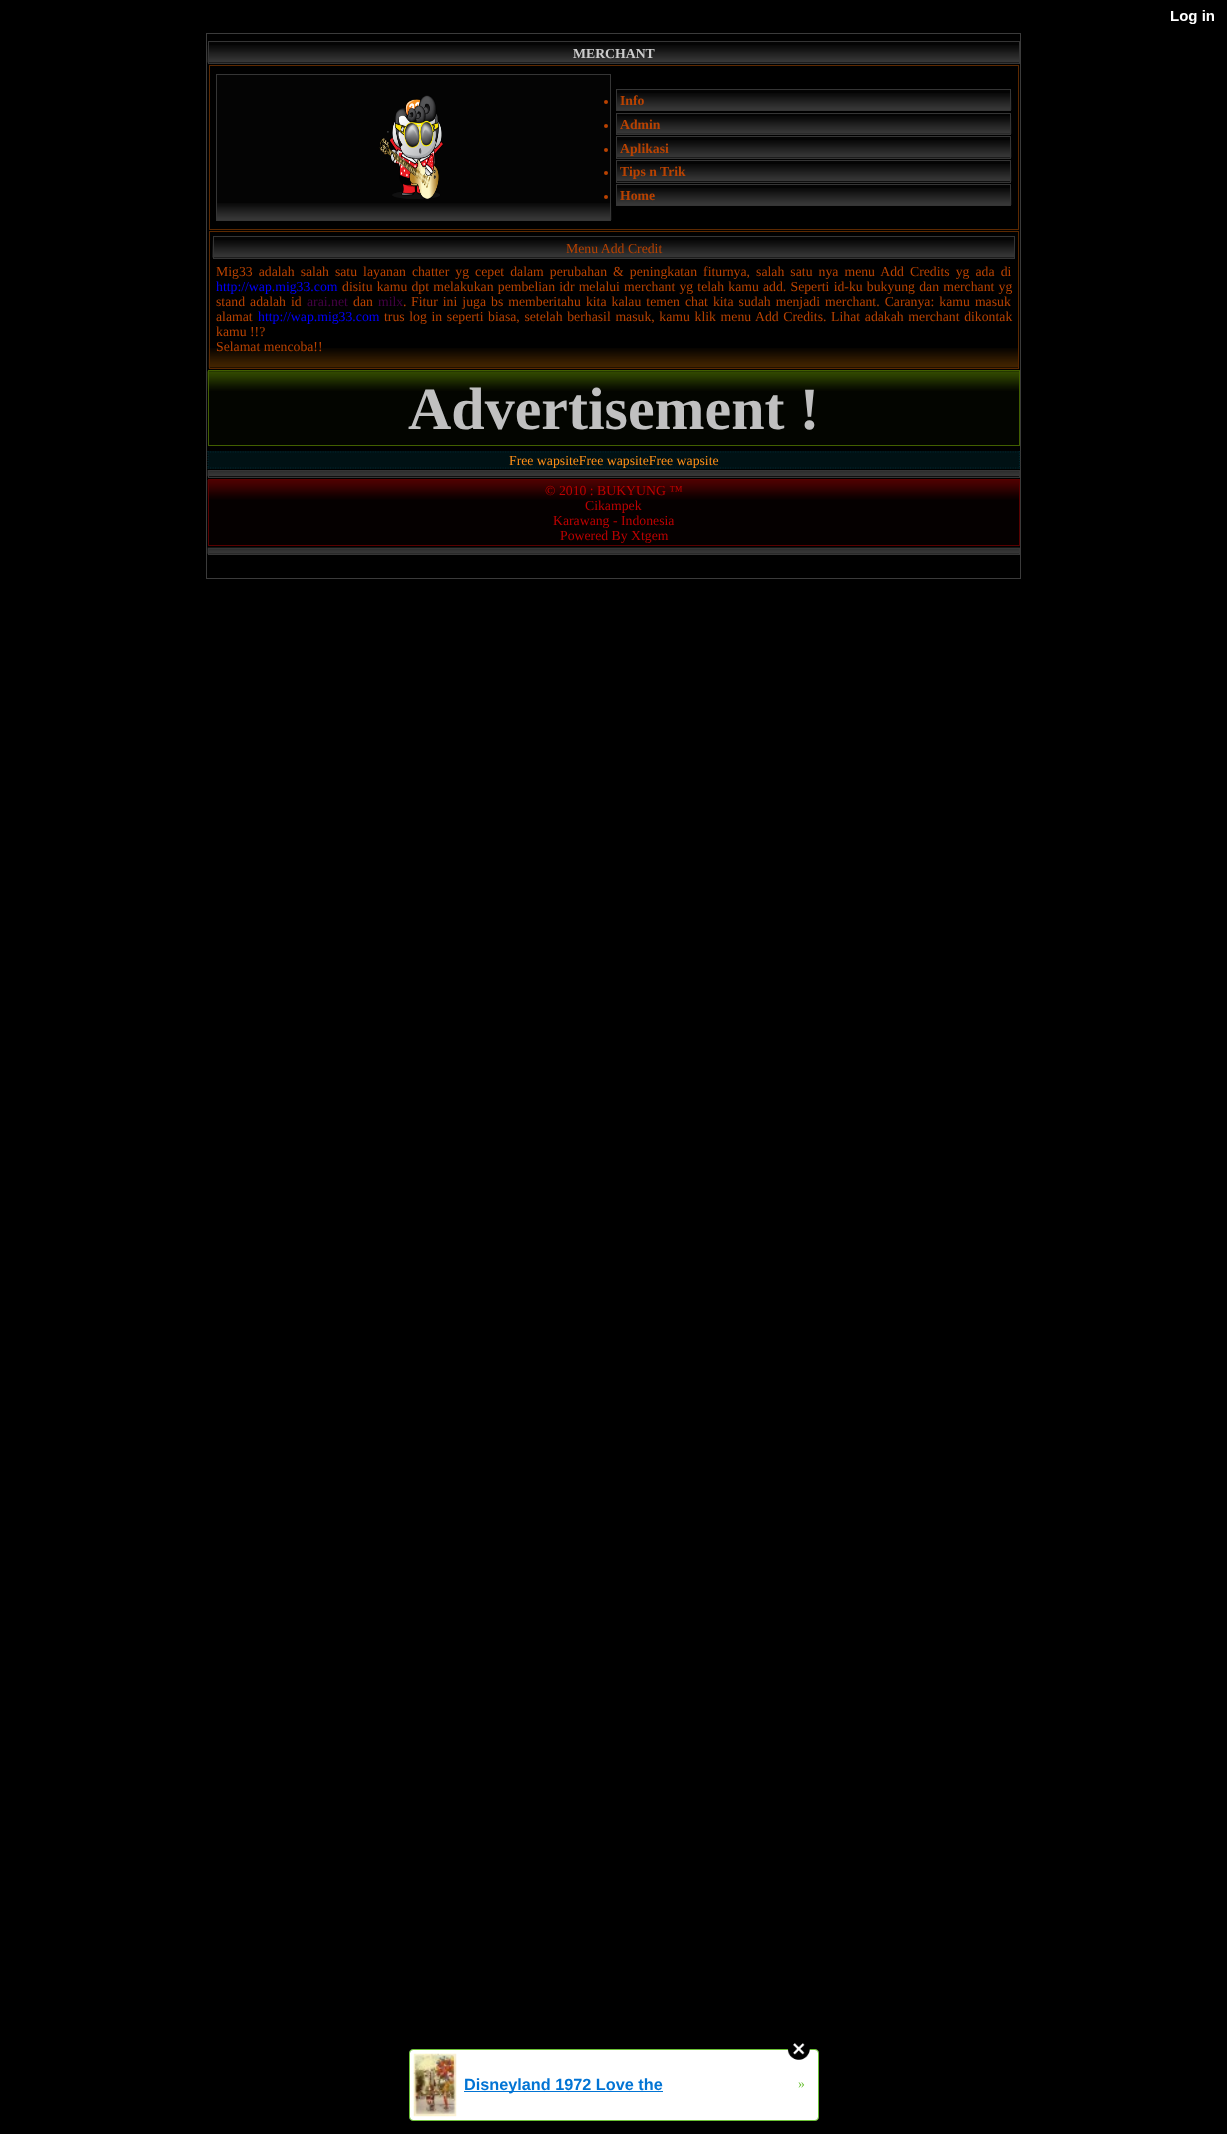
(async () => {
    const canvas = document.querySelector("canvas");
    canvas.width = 1227;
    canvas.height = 2134;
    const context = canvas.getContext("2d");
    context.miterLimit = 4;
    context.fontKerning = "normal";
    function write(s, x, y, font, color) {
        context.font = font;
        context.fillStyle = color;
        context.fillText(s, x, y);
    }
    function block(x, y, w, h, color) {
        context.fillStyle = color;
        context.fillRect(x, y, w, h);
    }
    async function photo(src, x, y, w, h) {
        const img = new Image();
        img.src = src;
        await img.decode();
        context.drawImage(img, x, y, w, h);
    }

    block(0, 0, 1227, 2134, "rgb(0, 0, 0)");
    context.strokeStyle = "rgb(59, 59, 59)";
    context.strokeRect(206.5, 33.5, 814, 545);
    await photo("media/1.png", 1171, 10, 43, 14);
    block(209, 42, 810, 21, "rgb(4, 4, 4)");
    await photo("media/2.png", 207, 45, 812, 18);
    context.strokeStyle = "rgb(53, 53, 53)";
    context.strokeRect(208.5, 41.5, 811, 22);
    write("MERCHANT", 573, 58, "bold 13.75px Liberation Serif", "rgb(204, 204, 204)");
    context.strokeStyle = "rgb(92, 41, 1)";
    context.strokeRect(209.5, 65.5, 809, 164);
    block(217, 75, 393, 128, "rgb(4, 4, 4)");
    await photo("media/3.png", 217, 203, 395, 17);
    context.strokeStyle = "rgb(53, 53, 53)";
    context.strokeRect(216.5, 74.5, 394, 146);
    await photo("media/4.png", 379, 95, 64, 104);
    block(617, 90, 393, 3, "rgb(4, 4, 4)");
    await photo("media/3.png", 617, 93, 395, 17);
    context.strokeRect(616.5, 89.5, 394, 21);
    context.fillStyle = "rgb(185, 66, 1)";
    context.beginPath();
    context.arc(606, 102, 2, 0, Math.PI * 2);
    context.fill();
    write("Info", 620, 105, "bold 13.75px Liberation Serif", "rgb(185, 66, 1)");
    block(617, 114, 393, 20, "rgb(4, 4, 4)");
    await photo("media/5.png", 617, 116, 395, 18);
    context.strokeRect(616.5, 113.5, 394, 21);
    context.fillStyle = "rgb(185, 66, 1)";
    context.beginPath();
    context.arc(606, 126, 2, 0, Math.PI * 2);
    context.fill();
    write("Admin", 620, 129, "bold 13.75px Liberation Serif", "rgb(185, 66, 1)");
    block(617, 137, 393, 21, "rgb(4, 4, 4)");
    await photo("media/6.png", 617, 140, 395, 18);
    context.strokeRect(616.5, 136.5, 394, 22);
    context.fillStyle = "rgb(185, 66, 1)";
    context.beginPath();
    context.arc(606, 150, 2, 0, Math.PI * 2);
    context.fill();
    write("Aplikasi", 620, 153, "bold 13.75px Liberation Serif", "rgb(185, 66, 1)");
    block(617, 161, 393, 21, "rgb(4, 4, 4)");
    await photo("media/7.png", 617, 164, 395, 18);
    context.strokeRect(616.5, 160.5, 394, 22);
    context.fillStyle = "rgb(185, 66, 1)";
    context.beginPath();
    context.arc(606, 173, 2, 0, Math.PI * 2);
    context.fill();
    write("Tips n Trik", 620, 176, "bold 13.75px Liberation Serif", "rgb(185, 66, 1)");
    block(617, 185, 393, 3, "rgb(4, 4, 4)");
    await photo("media/3.png", 617, 188, 395, 17);
    context.strokeRect(616.5, 184.5, 394, 21);
    context.fillStyle = "rgb(185, 66, 1)";
    context.beginPath();
    context.arc(606, 197, 2, 0, Math.PI * 2);
    context.fill();
    write("Home", 620, 200, "bold 13.75px Liberation Serif", "rgb(185, 66, 1)");
    await photo("media/8.png", 208, 348, 810, 20);
    context.strokeStyle = "rgb(92, 41, 1)";
    context.strokeRect(209.5, 231.5, 809, 137);
    block(214, 237, 800, 21, "rgb(4, 4, 4)");
    await photo("media/9.png", 212, 240, 802, 18);
    context.strokeStyle = "rgb(53, 53, 53)";
    context.strokeRect(213.5, 236.5, 801, 22);
    write("Menu Add Credit", 566, 253, "13.75px Liberation Serif", "rgb(185, 66, 1)");
    context.wordSpacing = "2.6px";
    write("Mig33 adalah salah satu layanan chatter yg cepet dalam perubahan & peningkatan fiturnya, salah satu nya menu Add Credits yg ada di", 216, 276, "13.75px Liberation Serif", "rgb(185, 66, 1)");
    context.wordSpacing = "0px";
    write("http://wap.mig33.com", 216, 291, "13.75px Liberation Serif", "rgb(0, 0, 255)");
    context.wordSpacing = "0.75px";
    write("disitu kamu dpt melakukan pembelian idr melalui merchant yg telah kamu add. Seperti id-ku bukyung dan merchant yg", 342, 291, "13.75px Liberation Serif", "rgb(185, 66, 1)");
    context.wordSpacing = "1.6px";
    write("stand adalah id", 216, 306, "13.75px Liberation Serif", "rgb(185, 66, 1)");
    context.wordSpacing = "0px";
    write("arai.net", 307, 306, "13.75px Liberation Serif", "rgb(68, 0, 68)");
    write("dan", 353, 306, "13.75px Liberation Serif", "rgb(185, 66, 1)");
    write("milx", 378, 306, "13.75px Liberation Serif", "rgb(68, 0, 68)");
    write(".", 403, 306, "13.75px Liberation Serif", "rgb(185, 66, 1)");
    context.wordSpacing = "1.6px";
    write("Fitur ini juga bs memberitahu kita kalau temen chat kita sudah menjadi merchant. Caranya: kamu masuk", 411, 306, "13.75px Liberation Serif", "rgb(185, 66, 1)");
    context.wordSpacing = "0px";
    write("alamat", 216, 321, "13.75px Liberation Serif", "rgb(185, 66, 1)");
    write("http://wap.mig33.com", 258, 321, "13.75px Liberation Serif", "rgb(0, 0, 255)");
    context.wordSpacing = "1.2px";
    write("trus log in seperti biasa, setelah berhasil masuk, kamu klik menu Add Credits. Lihat adakah merchant dikontak", 384, 321, "13.75px Liberation Serif", "rgb(185, 66, 1)");
    context.wordSpacing = "0px";
    write("kamu !!?", 216, 336, "13.75px Liberation Serif", "rgb(185, 66, 1)");
    write("Selamat mencoba!!", 216, 351, "13.75px Liberation Serif", "rgb(185, 66, 1)");
    block(209, 371, 810, 74, "rgb(3, 5, 0)");
    await photo("media/10.png", 207, 371, 812, 20);
    context.strokeStyle = "rgb(65, 95, 0)";
    context.strokeRect(208.5, 370.5, 811, 75);
    write("Advertisement !", 408, 429, "bold 60px Liberation Serif", "rgb(192, 192, 192)");
    block(208, 451, 812, 18, "rgb(0, 17, 20)");
    context.beginPath();
    context.moveTo(207.5, 452);
    context.lineTo(1020, 452);
    context.strokeStyle = "rgb(0, 39, 46)";
    context.lineWidth = 1.2;
    context.setLineDash([1.25, 1.25]);
    context.stroke();
    context.beginPath();
    context.moveTo(1019.5, 451);
    context.lineTo(1019.5, 469);
    context.stroke();
    context.beginPath();
    context.moveTo(207.5, 468);
    context.lineTo(1020, 468);
    context.stroke();
    context.beginPath();
    context.moveTo(208, 451);
    context.lineTo(208, 469);
    context.stroke();
    write("Free wapsiteFree wapsiteFree wapsite", 509, 465, "13.75px Liberation Serif", "rgb(254, 143, 23)");
    block(208, 476, 812, 1, "rgb(4, 4, 4)");
    await photo("media/11.png", 207, 470, 812, 7);
    context.strokeStyle = "rgb(53, 53, 53)";
    context.lineWidth = 1;
    context.setLineDash([]);
    context.strokeRect(208.5, 470.5, 811, 7);
    block(209, 500, 810, 45, "rgb(5, 0, 0)");
    await photo("media/12.png", 207, 480, 812, 20);
    context.strokeStyle = "rgb(89, 0, 0)";
    context.strokeRect(208.5, 479.5, 811, 66);
    write("© 2010 : BUKYUNG ™", 545, 495, "13.75px Liberation Serif", "rgb(189, 0, 0)");
    write("Cikampek", 585, 510, "13.75px Liberation Serif", "rgb(189, 0, 0)");
    write("Karawang - Indonesia", 553, 525, "13.75px Liberation Serif", "rgb(189, 0, 0)");
    write("Powered By Xtgem", 560, 540, "13.75px Liberation Serif", "rgb(189, 0, 0)");
    await photo("media/13.png", 207, 547, 813, 7);
    context.strokeStyle = "rgb(53, 53, 53)";
    context.strokeRect(208.5, 548.5, 811, 6);
    context.fillStyle = "rgb(255, 255, 255)";
    context.beginPath();
    context.roundRect(409.5, 2049.5, 409, 71, 3.5);
    context.fill();
    context.strokeStyle = "rgb(107, 193, 53)";
    context.stroke();
    await photo("media/14.png", 787, 2043, 23, 17);
    await photo("media/15.png", 413, 2053, 44, 64);
    block(464, 2091, 199, 1, "rgb(2, 116, 212)");
    write("Disneyland 1972 Love the", 464, 2090, "bold 16.25px Liberation Sans", "rgb(2, 116, 212)");
    write("»", 798, 2088, "13.75px Liberation Serif", "rgb(107, 193, 53)");
})();
